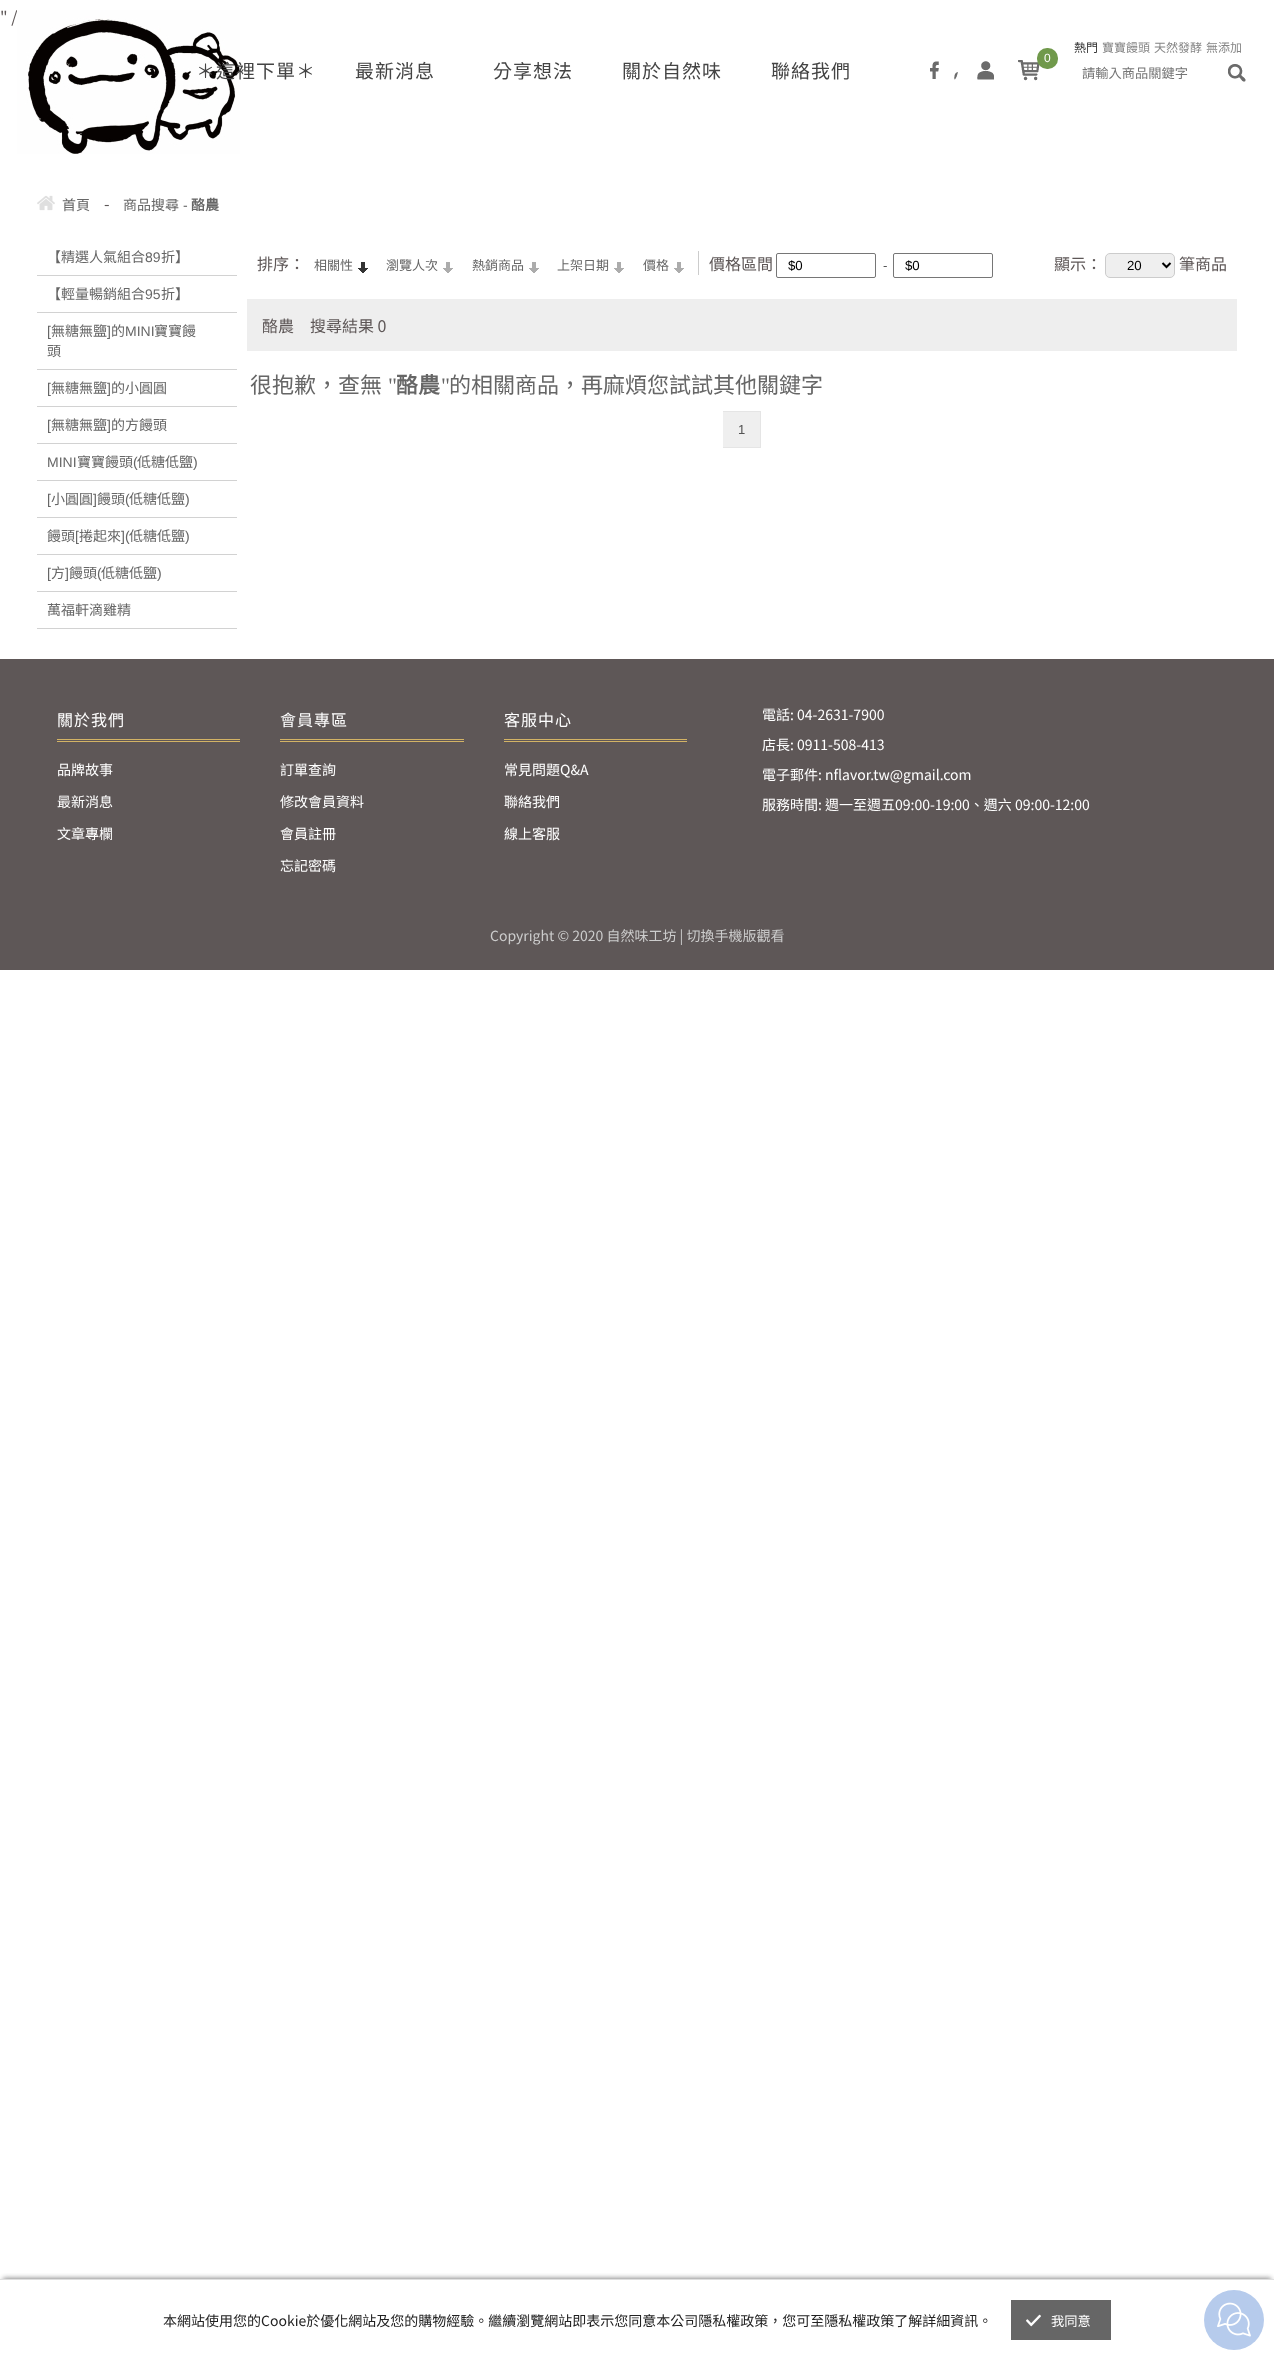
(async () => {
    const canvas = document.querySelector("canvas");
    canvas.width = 1274;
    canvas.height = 2360;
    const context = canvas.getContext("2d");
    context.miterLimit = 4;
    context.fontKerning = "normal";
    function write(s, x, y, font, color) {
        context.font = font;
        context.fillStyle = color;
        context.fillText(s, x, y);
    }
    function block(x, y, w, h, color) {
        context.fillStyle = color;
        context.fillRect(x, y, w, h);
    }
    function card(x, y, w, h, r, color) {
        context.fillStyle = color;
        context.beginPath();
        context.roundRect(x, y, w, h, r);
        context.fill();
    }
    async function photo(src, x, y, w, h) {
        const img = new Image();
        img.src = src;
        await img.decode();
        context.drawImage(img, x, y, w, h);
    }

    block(0, 0, 1274, 2360, "rgb(255, 255, 255)");
    write("\" /", 0, 23, "100 16px Noto Sans TC", "rgb(94, 87, 87)");
    await photo("media/1.png", 17, 10, 223, 144);
    context.letterSpacing = "1px";
    write("＊這裡下單＊", 196, 78, "100 19px Noto Sans TC", "rgb(68, 68, 68)");
    write("最新消息", 355, 78, "100 19px Noto Sans TC", "rgb(68, 68, 68)");
    write("分享想法", 493, 78, "100 19px Noto Sans TC", "rgb(68, 68, 68)");
    write("關於自然味", 622, 78, "100 19px Noto Sans TC", "rgb(68, 68, 68)");
    write("聯絡我們", 771, 78, "100 19px Noto Sans TC", "rgb(68, 68, 68)");
    await photo("media/2.png", 1018, 60, 22, 21);
    card(1037, 48, 21, 21, 10, "rgb(112, 153, 75)");
    context.letterSpacing = "0px";
    write("0", 1044, 62, "12px Liberation Sans", "rgb(255, 255, 255)");
    await photo("media/3.png", 930, 61, 28, 19);
    await photo("media/4.png", 977, 61, 17, 19);
    write("熱門", 1074, 52, "12px Noto Sans CJK TC", "rgb(51, 51, 51)");
    write("寶寶饅頭", 1102, 52, "12px Noto Sans CJK TC", "rgb(133, 133, 133)");
    write("天然發酵", 1154, 52, "12px Noto Sans CJK TC", "rgb(133, 133, 133)");
    write("無添加", 1206, 52, "12px Noto Sans CJK TC", "rgb(133, 133, 133)");
    write("請輸入商品關鍵字", 1082, 78, "13.25px Noto Sans CJK TC", "rgb(117, 117, 117)");
    await photo("media/5.png", 1228, 64, 18, 18);
    await photo("media/6.png", 37, 195, 18, 16);
    write("首頁", 62, 210, "14px Noto Sans CJK TC", "rgb(102, 102, 102)");
    write("-", 104, 210, "100 16px Noto Sans TC", "rgb(94, 87, 87)");
    write("商品搜尋", 123, 210, "14px Noto Sans CJK TC", "rgb(102, 102, 102)");
    write("-", 183, 210, "14px Liberation Sans", "rgb(102, 102, 102)");
    write("酪農", 191, 210, "bold 14px Noto Sans CJK TC", "rgb(102, 102, 102)");
    block(37, 275, 200, 1, "rgb(210, 210, 210)");
    write("【精選人氣組合", 47, 262, "14px Noto Sans CJK TC", "rgb(102, 102, 102)");
    write("89", 145, 262, "14px Liberation Sans", "rgb(102, 102, 102)");
    write("折】", 161, 262, "14px Noto Sans CJK TC", "rgb(102, 102, 102)");
    block(37, 312, 200, 1, "rgb(210, 210, 210)");
    write("【輕量暢銷組合", 47, 299, "14px Noto Sans CJK TC", "rgb(102, 102, 102)");
    write("95", 145, 299, "14px Liberation Sans", "rgb(102, 102, 102)");
    write("折】", 161, 299, "14px Noto Sans CJK TC", "rgb(102, 102, 102)");
    block(37, 369, 200, 1, "rgb(210, 210, 210)");
    write("[", 47, 336, "14px Liberation Sans", "rgb(102, 102, 102)");
    write("無糖無鹽", 51, 336, "14px Noto Sans CJK TC", "rgb(102, 102, 102)");
    write("]", 107, 336, "14px Liberation Sans", "rgb(102, 102, 102)");
    write("的", 111, 336, "14px Noto Sans CJK TC", "rgb(102, 102, 102)");
    write("MINI", 125, 336, "14px Liberation Sans", "rgb(102, 102, 102)");
    write("寶寶饅", 154, 336, "14px Noto Sans CJK TC", "rgb(102, 102, 102)");
    write("頭", 47, 356, "14px Noto Sans CJK TC", "rgb(102, 102, 102)");
    block(37, 406, 200, 1, "rgb(210, 210, 210)");
    write("[", 47, 393, "14px Liberation Sans", "rgb(102, 102, 102)");
    write("無糖無鹽", 51, 393, "14px Noto Sans CJK TC", "rgb(102, 102, 102)");
    write("]", 107, 393, "14px Liberation Sans", "rgb(102, 102, 102)");
    write("的小圓圓", 111, 393, "14px Noto Sans CJK TC", "rgb(102, 102, 102)");
    block(37, 443, 200, 1, "rgb(210, 210, 210)");
    write("[", 47, 430, "14px Liberation Sans", "rgb(102, 102, 102)");
    write("無糖無鹽", 51, 430, "14px Noto Sans CJK TC", "rgb(102, 102, 102)");
    write("]", 107, 430, "14px Liberation Sans", "rgb(102, 102, 102)");
    write("的方饅頭", 111, 430, "14px Noto Sans CJK TC", "rgb(102, 102, 102)");
    block(37, 480, 200, 1, "rgb(210, 210, 210)");
    write("MINI", 47, 467, "14px Liberation Sans", "rgb(102, 102, 102)");
    write("寶寶饅頭", 77, 467, "14px Noto Sans CJK TC", "rgb(102, 102, 102)");
    write("(", 133, 467, "14px Liberation Sans", "rgb(102, 102, 102)");
    write("低糖低鹽", 137, 467, "14px Noto Sans CJK TC", "rgb(102, 102, 102)");
    write(")", 193, 467, "14px Liberation Sans", "rgb(102, 102, 102)");
    block(37, 517, 200, 1, "rgb(210, 210, 210)");
    write("[", 47, 504, "14px Liberation Sans", "rgb(102, 102, 102)");
    write("小圓圓", 51, 504, "14px Noto Sans CJK TC", "rgb(102, 102, 102)");
    write("]", 93, 504, "14px Liberation Sans", "rgb(102, 102, 102)");
    write("饅頭", 97, 504, "14px Noto Sans CJK TC", "rgb(102, 102, 102)");
    write("(", 125, 504, "14px Liberation Sans", "rgb(102, 102, 102)");
    write("低糖低鹽", 129, 504, "14px Noto Sans CJK TC", "rgb(102, 102, 102)");
    write(")", 185, 504, "14px Liberation Sans", "rgb(102, 102, 102)");
    block(37, 554, 200, 1, "rgb(210, 210, 210)");
    write("饅頭", 47, 541, "14px Noto Sans CJK TC", "rgb(102, 102, 102)");
    write("[", 75, 541, "14px Liberation Sans", "rgb(102, 102, 102)");
    write("捲起來", 79, 541, "14px Noto Sans CJK TC", "rgb(102, 102, 102)");
    write("](", 121, 541, "14px Liberation Sans", "rgb(102, 102, 102)");
    write("低糖低鹽", 129, 541, "14px Noto Sans CJK TC", "rgb(102, 102, 102)");
    write(")", 185, 541, "14px Liberation Sans", "rgb(102, 102, 102)");
    block(37, 591, 200, 1, "rgb(210, 210, 210)");
    write("[", 47, 578, "14px Liberation Sans", "rgb(102, 102, 102)");
    write("方", 51, 578, "14px Noto Sans CJK TC", "rgb(102, 102, 102)");
    write("]", 65, 578, "14px Liberation Sans", "rgb(102, 102, 102)");
    write("饅頭", 69, 578, "14px Noto Sans CJK TC", "rgb(102, 102, 102)");
    write("(", 97, 578, "14px Liberation Sans", "rgb(102, 102, 102)");
    write("低糖低鹽", 101, 578, "14px Noto Sans CJK TC", "rgb(102, 102, 102)");
    write(")", 157, 578, "14px Liberation Sans", "rgb(102, 102, 102)");
    block(37, 628, 200, 1, "rgb(210, 210, 210)");
    write("萬福軒滴雞精", 47, 615, "14px Noto Sans CJK TC", "rgb(102, 102, 102)");
    write("排序：", 257, 270, "100 16px Noto Sans TC", "rgb(94, 87, 87)");
    write("相關性", 314, 270, "13px Noto Sans CJK TC", "rgb(102, 102, 102)");
    await photo("media/7.png", 358, 262, 10, 11);
    write("瀏覽人次", 386, 270, "13px Noto Sans CJK TC", "rgb(102, 102, 102)");
    await photo("media/8.png", 443, 262, 10, 11);
    write("熱銷商品", 472, 270, "13px Noto Sans CJK TC", "rgb(102, 102, 102)");
    await photo("media/8.png", 529, 262, 10, 11);
    write("上架日期", 557, 270, "13px Noto Sans CJK TC", "rgb(102, 102, 102)");
    await photo("media/8.png", 614, 262, 10, 11);
    write("價格", 643, 270, "13px Noto Sans CJK TC", "rgb(102, 102, 102)");
    await photo("media/8.png", 674, 262, 10, 11);
    write("價格區間", 709, 270, "100 16px Noto Sans TC", "rgb(94, 87, 87)");
    block(698, 251, 1, 24, "rgb(204, 204, 204)");
    context.beginPath();
    context.roundRect(776.5, 253.5, 99, 24, 1.5);
    context.strokeStyle = "rgb(118, 118, 118)";
    context.stroke();
    write("$0", 788, 270, "13.25px Liberation Sans", "rgb(0, 0, 0)");
    write("-", 883, 270, "13.25px Liberation Sans", "rgb(84, 84, 84)");
    context.beginPath();
    context.roundRect(893.5, 253.5, 99, 24, 1.5);
    context.stroke();
    write("$0", 905, 270, "13.25px Liberation Sans", "rgb(0, 0, 0)");
    write("顯示：", 1054, 270, "100 16px Noto Sans TC", "rgb(94, 87, 87)");
    context.fillStyle = "rgb(239, 239, 239)";
    context.beginPath();
    context.roundRect(1105.5, 253.5, 69, 24, 4.5);
    context.fill();
    context.strokeStyle = "rgb(204, 204, 204)";
    context.stroke();
    context.beginPath();
    context.moveTo(1162.5, 263);
    context.lineTo(1166.5, 267);
    context.lineTo(1170.5, 263);
    context.strokeStyle = "rgb(0, 0, 0)";
    context.lineWidth = 2;
    context.stroke();
    write("20", 1127, 270, "13.25px Liberation Sans", "rgb(0, 0, 0)");
    write("筆商品", 1179, 270, "100 16px Noto Sans TC", "rgb(94, 87, 87)");
    block(247, 299, 990, 52, "rgb(238, 238, 238)");
    write("酪農", 262, 332, "100 16px Noto Sans TC", "rgb(94, 87, 87)");
    write("搜尋結果 0", 310, 332, "100 16px Noto Sans TC", "rgb(94, 87, 87)");
    write("很抱歉，查無", 250, 393, "22px Noto Sans CJK TC", "rgb(102, 102, 102)");
    write("\"", 388, 393, "22px Liberation Serif", "rgb(102, 102, 102)");
    write("酪農", 396, 393, "bold 22px Noto Sans CJK TC", "rgb(102, 102, 102)");
    write("\"", 441, 393, "22px Liberation Serif", "rgb(102, 102, 102)");
    write("的相關商品，再麻煩您試試其他關鍵字", 449, 393, "22px Noto Sans CJK TC", "rgb(102, 102, 102)");
    block(723, 412, 37, 35, "rgb(239, 239, 239)");
    block(723, 411, 38, 1, "rgb(229, 229, 229)");
    block(760, 411, 1, 37, "rgb(229, 229, 229)");
    block(723, 447, 38, 1, "rgb(229, 229, 229)");
    write("1", 738, 434, "13px Liberation Sans", "rgb(84, 84, 84)");
    block(0, 659, 1274, 311, "rgb(94, 87, 87)");
    block(57, 739, 183, 1, "rgb(211, 179, 101)");
    block(57, 741, 183, 1, "rgb(211, 179, 101)");
    context.letterSpacing = "1px";
    write("關於我們", 57, 726, "100 16px Noto Sans TC", "rgb(255, 255, 255)");
    context.letterSpacing = "0px";
    write("品牌故事", 57, 775, "100 14px Noto Sans TC", "rgb(255, 255, 255)");
    write("最新消息", 57, 807, "100 14px Noto Sans TC", "rgb(255, 255, 255)");
    write("文章專欄", 57, 839, "100 14px Noto Sans TC", "rgb(255, 255, 255)");
    block(280, 739, 184, 1, "rgb(211, 179, 101)");
    block(280, 741, 184, 1, "rgb(211, 179, 101)");
    context.letterSpacing = "1px";
    write("會員專區", 280, 726, "100 16px Noto Sans TC", "rgb(255, 255, 255)");
    context.letterSpacing = "0px";
    write("訂單查詢", 280, 775, "100 14px Noto Sans TC", "rgb(255, 255, 255)");
    write("修改會員資料", 280, 807, "100 14px Noto Sans TC", "rgb(255, 255, 255)");
    write("會員註冊", 280, 839, "100 14px Noto Sans TC", "rgb(255, 255, 255)");
    write("忘記密碼", 280, 871, "100 14px Noto Sans TC", "rgb(255, 255, 255)");
    block(504, 739, 183, 1, "rgb(211, 179, 101)");
    block(504, 741, 183, 1, "rgb(211, 179, 101)");
    context.letterSpacing = "1px";
    write("客服中心", 504, 726, "100 16px Noto Sans TC", "rgb(255, 255, 255)");
    context.letterSpacing = "0px";
    write("常見問題Q&A", 504, 775, "100 14px Noto Sans TC", "rgb(255, 255, 255)");
    write("聯絡我們", 504, 807, "100 14px Noto Sans TC", "rgb(255, 255, 255)");
    write("線上客服", 504, 839, "100 14px Noto Sans TC", "rgb(255, 255, 255)");
    write("電話: 04-2631-7900", 762, 720, "100 14px Noto Sans TC", "rgb(255, 255, 255)");
    write("店長: 0911-508-413", 762, 750, "100 14px Noto Sans TC", "rgb(255, 255, 255)");
    write("電子郵件: nflavor.tw@gmail.com", 762, 780, "100 14px Noto Sans TC", "rgb(255, 255, 255)");
    write("服務時間: 週一至週五09:00-19:00、週六 09:00-12:00", 762, 810, "100 14px Noto Sans TC", "rgb(255, 255, 255)");
    write("Copyright © 2020 自然味工坊 | 切換手機版觀看", 490, 941, "100 14px Noto Sans TC", "rgb(204, 204, 204)");
    context.save();
    context.beginPath();
    context.rect(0, 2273, 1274, 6);
    context.clip();
    context.fillStyle = "rgb(138, 138, 138)";
    context.filter = "blur(2.5px)";
    context.beginPath();
    context.rect(3, 2278, 1268, 75);
    context.fill();
    context.filter = "none";
    context.restore();
    context.fillStyle = "rgb(182, 203, 236)";
    context.beginPath();
    context.arc(1234, 2320, 30, 0, Math.PI * 2);
    context.fill();
    await photo("media/9.png", 1217, 2302, 34, 35);
    block(0, 2279, 1274, 1, "rgb(223, 223, 223)");
    write("本網站使用您的Cookie於優化網站及您的購物經驗。繼續瀏覽網站即表示您同意本公司隱私權政策，您可至隱私權政策了解詳細資訊。", 163, 2326, "100 14px Noto Sans TC", "rgb(34, 34, 34)");
    block(1011, 2300, 100, 40, "rgb(102, 102, 102)");
    await photo("media/10.png", 1026, 2314, 15, 13);
    write("我同意", 1051, 2326, "13.25px Noto Sans CJK TC", "rgb(255, 255, 255)");
})();
